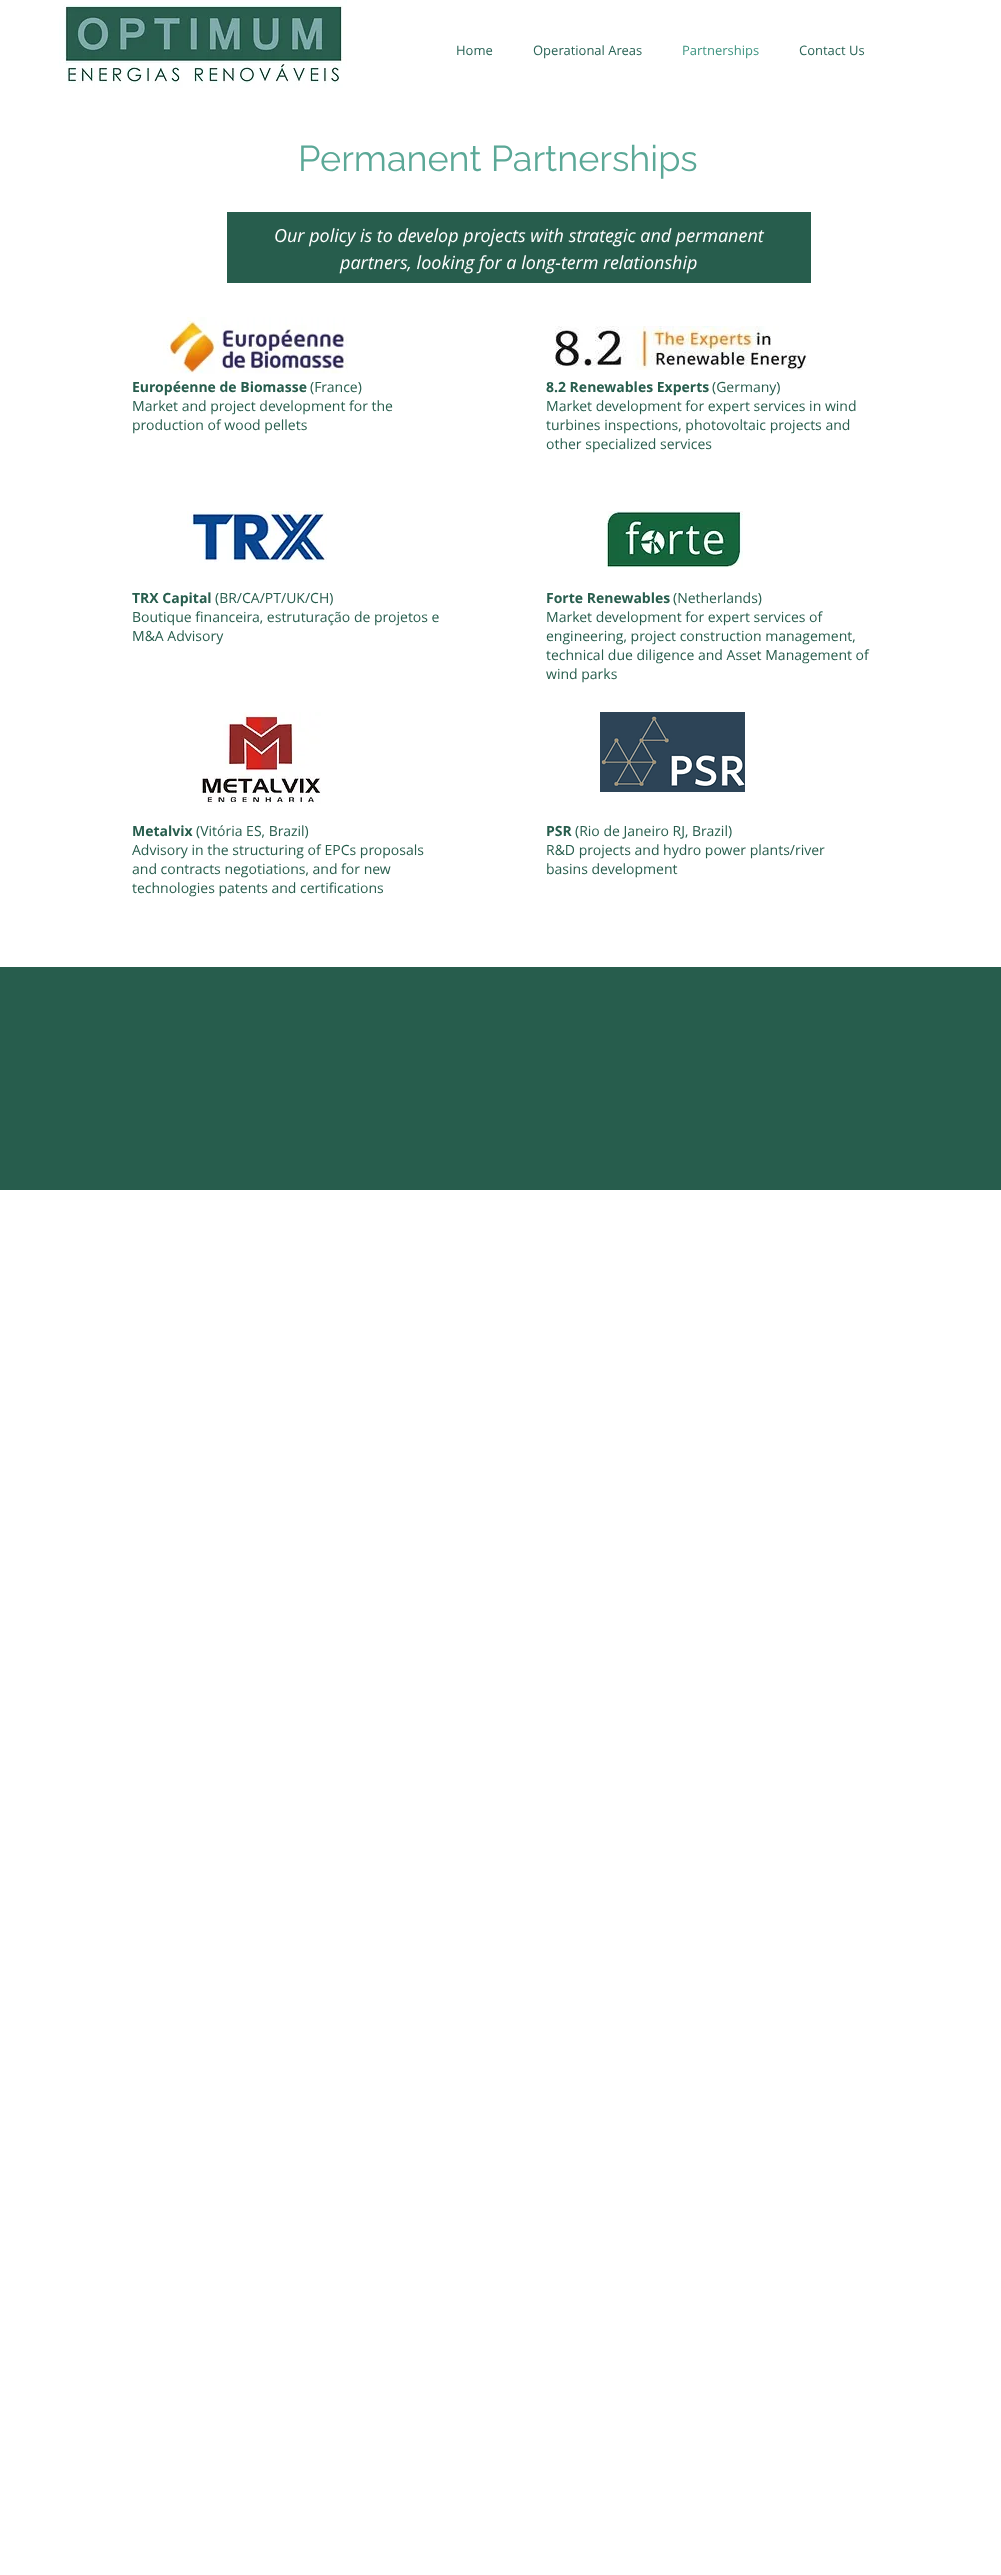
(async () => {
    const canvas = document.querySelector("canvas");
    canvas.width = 1001;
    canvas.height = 2575;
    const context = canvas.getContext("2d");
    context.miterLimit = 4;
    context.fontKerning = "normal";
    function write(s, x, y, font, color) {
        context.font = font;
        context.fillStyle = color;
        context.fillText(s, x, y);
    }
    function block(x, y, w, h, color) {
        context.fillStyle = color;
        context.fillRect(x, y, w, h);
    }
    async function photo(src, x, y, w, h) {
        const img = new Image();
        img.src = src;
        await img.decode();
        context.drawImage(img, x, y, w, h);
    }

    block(0, 0, 1001, 2575, "rgb(255, 255, 255)");
    await photo("media/1.png", 59, 0, 288, 88);
    write("Home", 456, 55, "13px Open Sans", "rgb(41, 99, 86)");
    write("Operational Areas", 533, 55, "13px Open Sans", "rgb(41, 99, 86)");
    write("Partnerships", 682, 55, "13px Open Sans", "rgb(62, 148, 129)");
    write("Contact Us", 799, 55, "13px Open Sans", "rgb(41, 99, 86)");
    write("Permanent Partnerships", 298, 171, "36px Raleway", "rgb(91, 168, 151)");
    block(227, 212, 584, 71, "rgb(39, 93, 77)");
    write("Our policy is to develop projects with strategic and permanent", 274, 242, "italic 18px Open Sans", "rgb(255, 255, 255)");
    write("partners, looking for a long-term relationship", 340, 269, "italic 18px Open Sans", "rgb(255, 255, 255)");
    await photo("media/2.png", 555, 326, 252, 44);
    await photo("media/3.png", 163, 317, 185, 57);
    write("Européenne de Biomasse", 132, 392, "bold 14px Open Sans", "rgb(39, 93, 77)");
    write("(France)", 310, 392, "14px Open Sans", "rgb(39, 93, 77)");
    write("Market and project development for the", 132, 411, "14px Open Sans", "rgb(39, 93, 77)");
    write("production of wood pellets", 132, 430, "14px Open Sans", "rgb(39, 93, 77)");
    write("8.2 Renewables Experts", 546, 392, "bold 14px Open Sans", "rgb(39, 93, 77)");
    write("(Germany)", 712, 392, "14px Open Sans", "rgb(39, 93, 77)");
    write("Market development for expert services in wind", 546, 411, "14px Open Sans", "rgb(39, 93, 77)");
    write("turbines inspections, photovoltaic projects and", 546, 430, "14px Open Sans", "rgb(39, 93, 77)");
    write("other specialized services", 546, 449, "14px Open Sans", "rgb(39, 93, 77)");
    await photo("media/4.png", 187, 511, 140, 52);
    await photo("media/5.png", 606, 511, 137, 57);
    write("TRX Capital", 132, 603, "bold 14px Open Sans", "rgb(39, 93, 77)");
    write("(BR/CA/PT/UK/CH)", 215, 603, "14px Open Sans", "rgb(39, 93, 77)");
    write("Boutique financeira, estruturação de projetos e", 132, 622, "14px Open Sans", "rgb(39, 93, 77)");
    write("M&A Advisory", 132, 641, "14px Open Sans", "rgb(39, 93, 77)");
    write("Forte Renewables", 546, 603, "bold 14px Open Sans", "rgb(39, 93, 77)");
    write("(Netherlands)", 673, 603, "14px Open Sans", "rgb(39, 93, 77)");
    write("Market development for expert services of", 546, 622, "14px Open Sans", "rgb(39, 93, 77)");
    write("engineering, project construction management,", 546, 641, "14px Open Sans", "rgb(39, 93, 77)");
    write("technical due diligence and Asset Management of", 546, 660, "14px Open Sans", "rgb(39, 93, 77)");
    write("wind parks", 546, 679, "14px Open Sans", "rgb(39, 93, 77)");
    await photo("media/6.png", 201, 712, 120, 92);
    await photo("media/7.png", 600, 712, 145, 80);
    write("Metalvix", 132, 836, "bold 14px Open Sans", "rgb(39, 93, 77)");
    write("(Vitória ES, Brazil)", 196, 836, "14px Open Sans", "rgb(39, 93, 77)");
    write("Advisory in the structuring of EPCs proposals", 132, 855, "14px Open Sans", "rgb(39, 93, 77)");
    write("and contracts negotiations, and for new", 132, 874, "14px Open Sans", "rgb(39, 93, 77)");
    write("technologies patents and certifications", 132, 893, "14px Open Sans", "rgb(39, 93, 77)");
    write("PSR", 546, 836, "bold 14px Open Sans", "rgb(39, 93, 77)");
    write("(Rio de Janeiro RJ, Brazil)", 575, 836, "14px Open Sans", "rgb(39, 93, 77)");
    write("R&D projects and hydro power plants/river", 546, 855, "14px Open Sans", "rgb(39, 93, 77)");
    write("basins development", 546, 874, "14px Open Sans", "rgb(39, 93, 77)");
    block(0, 967, 1001, 223, "rgb(39, 93, 77)");
})();
